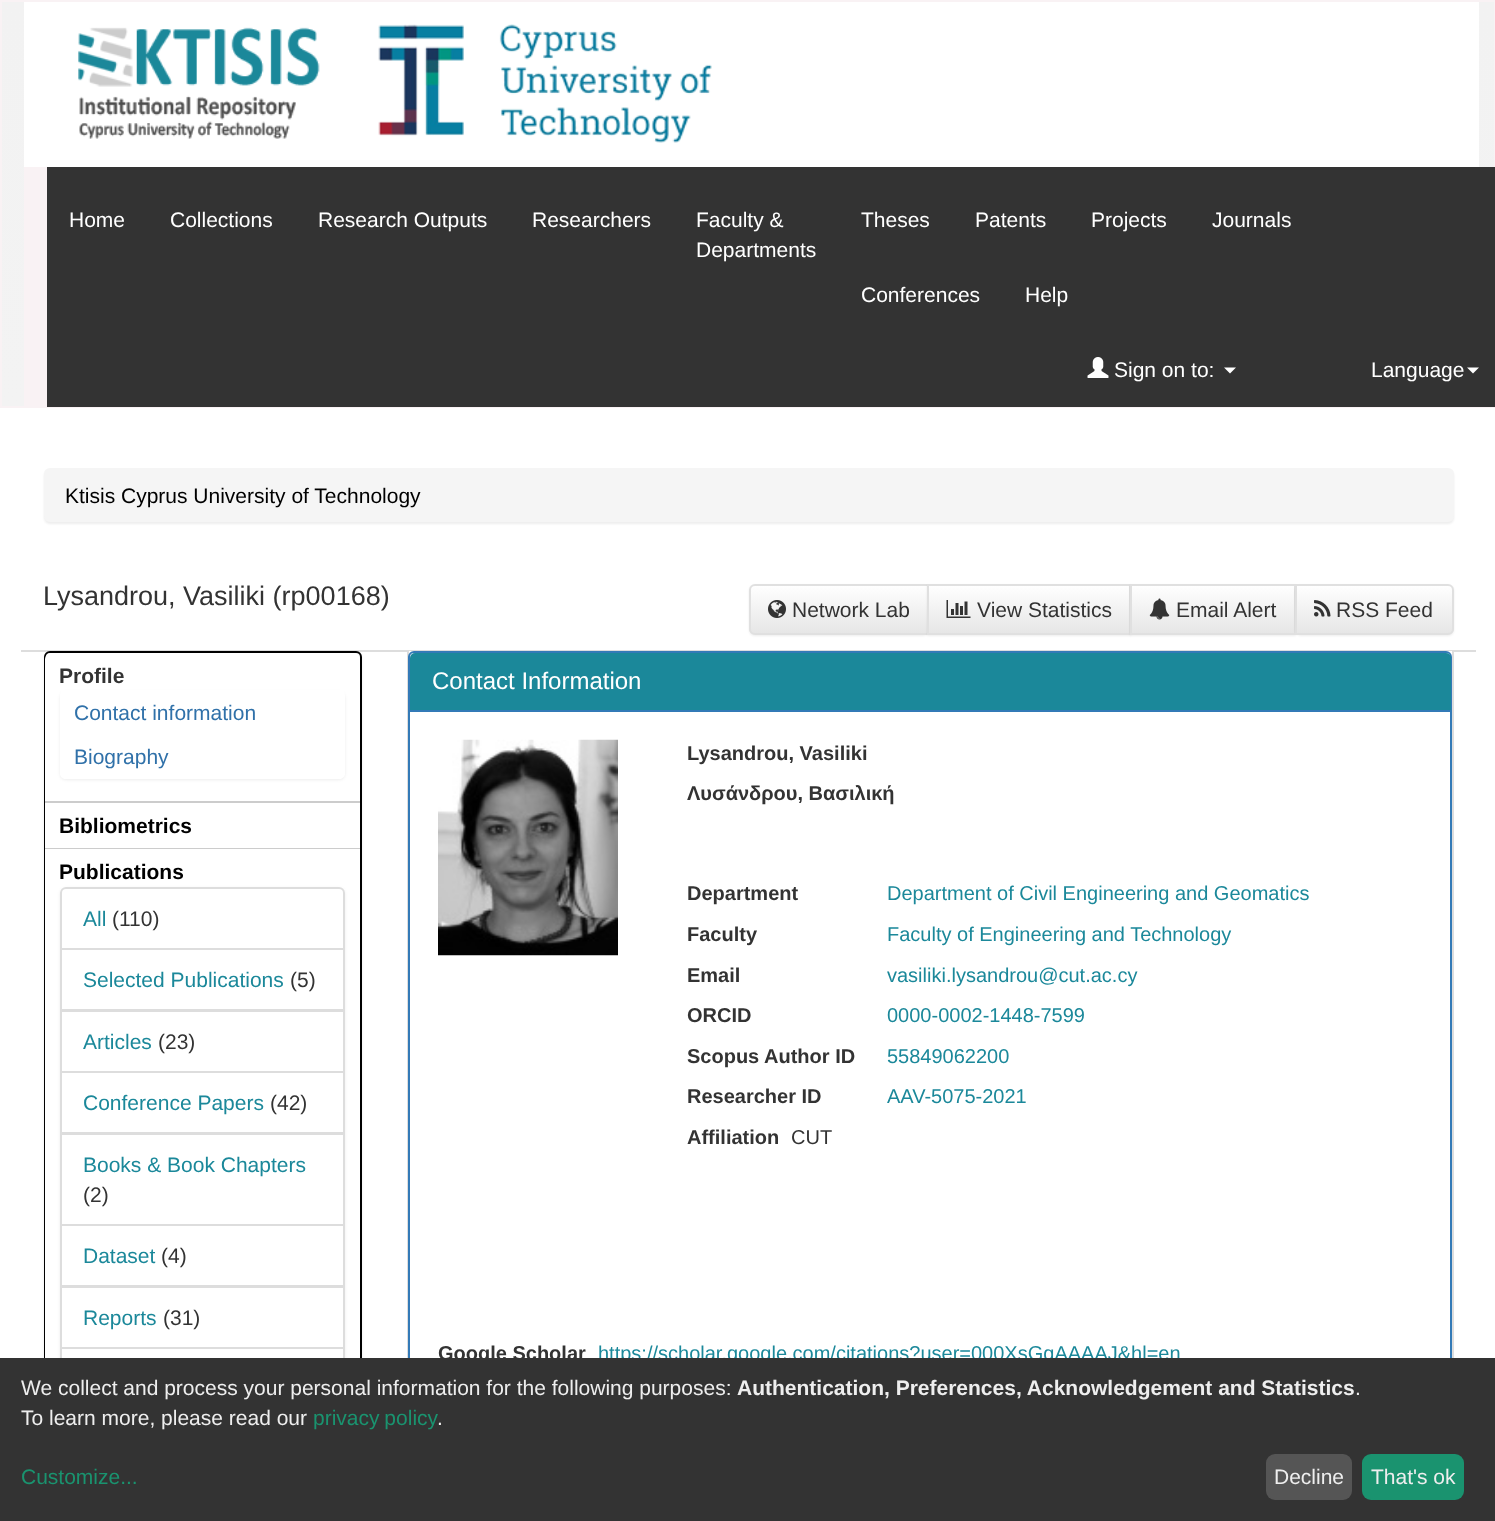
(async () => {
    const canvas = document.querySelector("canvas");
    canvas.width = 1495;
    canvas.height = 1521;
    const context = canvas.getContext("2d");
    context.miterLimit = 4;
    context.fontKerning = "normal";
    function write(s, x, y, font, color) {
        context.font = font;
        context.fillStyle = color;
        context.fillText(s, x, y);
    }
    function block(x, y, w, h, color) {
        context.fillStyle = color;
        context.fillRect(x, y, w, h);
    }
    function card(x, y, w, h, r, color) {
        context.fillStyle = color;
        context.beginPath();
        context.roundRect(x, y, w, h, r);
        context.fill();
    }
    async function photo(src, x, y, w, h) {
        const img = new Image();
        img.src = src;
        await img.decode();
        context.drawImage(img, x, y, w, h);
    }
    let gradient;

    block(0, 0, 1495, 1521, "rgb(255, 255, 255)");
    gradient = context.createLinearGradient(748, 1.5, 748, 407);
    gradient.addColorStop(0, "rgb(242, 242, 242)");
    gradient.addColorStop(1, "rgb(243, 243, 243)");
    context.fillStyle = gradient;
    context.fillRect(2, 2, 1492, 404);
    context.strokeStyle = "rgb(249, 242, 244)";
    context.lineWidth = 2;
    context.strokeRect(1, 1, 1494, 406);
    block(24, 2, 1455, 165, "rgb(255, 255, 255)");
    await photo("media/1.png", 78, 27, 242, 112);
    await photo("media/2.png", 378, 24, 334, 119);
    block(24, 167, 23, 239, "rgb(249, 242, 244)");
    block(47, 167, 1448, 240, "rgb(51, 51, 51)");
    write("Home", 69, 227, "21px Liberation Sans", "rgb(255, 255, 255)");
    write("Collections", 170, 227, "21px Liberation Sans", "rgb(255, 255, 255)");
    write("Research Outputs", 318, 227, "21px Liberation Sans", "rgb(255, 255, 255)");
    write("Researchers", 532, 227, "21px Liberation Sans", "rgb(255, 255, 255)");
    write("Faculty &", 696, 227, "21px Liberation Sans", "rgb(255, 255, 255)");
    write("Departments", 696, 257, "21px Liberation Sans", "rgb(255, 255, 255)");
    write("Theses", 861, 227, "21px Liberation Sans", "rgb(255, 255, 255)");
    write("Patents", 975, 227, "21px Liberation Sans", "rgb(255, 255, 255)");
    write("Projects", 1091, 227, "21px Liberation Sans", "rgb(255, 255, 255)");
    write("Journals", 1212, 227, "21px Liberation Sans", "rgb(255, 255, 255)");
    write("Conferences", 861, 302, "21px Liberation Sans", "rgb(255, 255, 255)");
    write("Help", 1025, 302, "21px Liberation Sans", "rgb(255, 255, 255)");
    await photo("media/3.png", 1087, 357, 22, 21);
    write("Sign on to:", 1114, 377, "21px Liberation Sans", "rgb(255, 255, 255)");
    context.beginPath();
    context.moveTo(1224, 367.5);
    context.lineTo(1236, 367.5);
    context.lineTo(1230, 373.5);
    context.closePath();
    context.fill();
    write("Language", 1371, 377, "21px Liberation Sans", "rgb(255, 255, 255)");
    context.beginPath();
    context.moveTo(1467, 367.5);
    context.lineTo(1479, 367.5);
    context.lineTo(1473, 373.5);
    context.closePath();
    context.fill();
    context.fillStyle = "rgba(0, 0, 0, 0.07)";
    context.filter = "blur(1px)";
    context.beginPath();
    context.roundRect(44, 470, 1410, 54, 6);
    context.fill();
    context.filter = "none";
    card(44, 468, 1410, 54, 6, "rgb(245, 245, 245)");
    write("Ktisis Cyprus University of Technology", 65, 503, "21px Liberation Sans", "rgb(0, 0, 0)");
    write("Lysandrou, Vasiliki (rp00168)", 43, 605, "27px Liberation Sans", "rgb(51, 51, 51)");
    context.fillStyle = "rgba(0, 0, 0, 0.07)";
    context.filter = "blur(1px)";
    context.beginPath();
    context.roundRect(749, 585, 180, 51, 6);
    context.fill();
    context.filter = "none";
    context.save();
    context.beginPath();
    context.roundRect(749, 584, 180, 51, [6, 0, 0, 6]);
    context.clip();
    gradient = context.createLinearGradient(839, 585, 839, 633);
    gradient.addColorStop(0, "rgb(255, 255, 255)");
    gradient.addColorStop(1, "rgb(230, 230, 230)");
    context.fillStyle = gradient;
    context.fillRect(749, 585, 178, 48);
    context.restore();
    context.beginPath();
    context.roundRect(750, 585, 178, 49, [5, 0, 0, 5]);
    context.strokeStyle = "rgb(224, 224, 224)";
    context.stroke();
    await photo("media/4.png", 768, 600, 18, 18);
    write("Network Lab", 792, 617, "21px Liberation Sans", "rgb(51, 51, 51)");
    context.fillStyle = "rgba(0, 0, 0, 0.07)";
    context.filter = "blur(1px)";
    context.beginPath();
    context.rect(927, 585, 204, 51);
    context.fill();
    context.filter = "none";
    gradient = context.createLinearGradient(1029, 585, 1029, 633);
    gradient.addColorStop(0, "rgb(255, 255, 255)");
    gradient.addColorStop(1, "rgb(230, 230, 230)");
    context.fillStyle = gradient;
    context.fillRect(929, 586, 200, 47);
    context.strokeRect(928, 585, 202, 49);
    await photo("media/5.png", 946, 600, 25, 18);
    write("View Statistics", 977, 617, "21px Liberation Sans", "rgb(51, 51, 51)");
    context.fillStyle = "rgba(0, 0, 0, 0.07)";
    context.filter = "blur(1px)";
    context.beginPath();
    context.rect(1130, 585, 166, 51);
    context.fill();
    context.filter = "none";
    gradient = context.createLinearGradient(1213, 585, 1213, 633);
    gradient.addColorStop(0, "rgb(255, 255, 255)");
    gradient.addColorStop(1, "rgb(230, 230, 230)");
    context.fillStyle = gradient;
    context.fillRect(1132, 586, 162, 47);
    context.strokeRect(1131, 585, 164, 49);
    await photo("media/6.png", 1149, 598, 21, 22);
    write("Email Alert", 1176, 617, "21px Liberation Sans", "rgb(51, 51, 51)");
    context.fillStyle = "rgba(0, 0, 0, 0.07)";
    context.filter = "blur(1px)";
    context.beginPath();
    context.roundRect(1295, 585, 159, 51, 6);
    context.fill();
    context.filter = "none";
    context.save();
    context.beginPath();
    context.roundRect(1295, 584, 159, 51, [0, 6, 6, 0]);
    context.clip();
    gradient = context.createLinearGradient(1374, 585, 1374, 633);
    gradient.addColorStop(0, "rgb(255, 255, 255)");
    gradient.addColorStop(1, "rgb(230, 230, 230)");
    context.fillStyle = gradient;
    context.fillRect(1297, 585, 157, 48);
    context.restore();
    context.beginPath();
    context.roundRect(1296, 585, 157, 49, [0, 5, 5, 0]);
    context.stroke();
    await photo("media/7.png", 1314, 600, 17, 17);
    write("RSS Feed", 1336, 617, "21px Liberation Sans", "rgb(51, 51, 51)");
    block(21, 650, 1455, 2, "rgb(221, 221, 221)");
    context.fillStyle = "rgba(0, 0, 0, 0.07)";
    context.filter = "blur(1.5px)";
    context.beginPath();
    context.roundRect(44, 653, 318, 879, 6);
    context.fill();
    context.filter = "none";
    context.beginPath();
    context.roundRect(45, 652, 316, 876, 5);
    context.strokeStyle = "rgb(0, 0, 0)";
    context.stroke();
    context.fillStyle = "rgb(255, 255, 255)";
    context.beginPath();
    context.roundRect(45, 653, 315, 148, [6, 6, 0, 0]);
    context.fill();
    write("Profile", 59, 683, "bold 21px Liberation Sans", "rgb(51, 51, 51)");
    context.save();
    context.beginPath();
    context.moveTo(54, 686);
    context.lineTo(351, 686);
    context.lineTo(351, 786);
    context.lineTo(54, 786);
    context.closePath();
    context.moveTo(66, 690);
    context.lineTo(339, 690);
    context.bezierCurveTo(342.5, 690, 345, 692.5, 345, 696);
    context.lineTo(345, 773);
    context.bezierCurveTo(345, 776.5, 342.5, 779, 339, 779);
    context.lineTo(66, 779);
    context.bezierCurveTo(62.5, 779, 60, 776.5, 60, 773);
    context.lineTo(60, 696);
    context.bezierCurveTo(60, 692.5, 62.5, 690, 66, 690);
    context.closePath();
    context.clip("evenodd");
    context.fillStyle = "rgba(0, 0, 0, 0.07)";
    context.filter = "blur(1.5px)";
    context.beginPath();
    context.roundRect(60, 692, 285, 88, 6);
    context.fill();
    context.filter = "none";
    context.restore();
    write("Contact information", 74, 720, "21px Liberation Sans", "rgb(48, 113, 169)");
    context.fillStyle = "rgb(255, 255, 255)";
    context.beginPath();
    context.roundRect(60, 734, 285, 45, [0, 0, 6, 6]);
    context.fill();
    write("Biography", 74, 764, "21px Liberation Sans", "rgb(48, 113, 169)");
    block(45, 801, 315, 2, "rgb(204, 204, 204)");
    block(45, 803, 315, 45, "rgb(255, 255, 255)");
    write("Bibliometrics", 59, 833, "bold 21px Liberation Sans", "rgb(0, 0, 0)");
    block(45, 848, 315, 1, "rgb(204, 204, 204)");
    block(45, 849, 315, 509, "rgb(255, 255, 255)");
    write("Publications", 59, 879, "bold 21px Liberation Sans", "rgb(0, 0, 0)");
    context.save();
    context.beginPath();
    context.moveTo(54, 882);
    context.lineTo(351, 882);
    context.lineTo(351, 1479);
    context.lineTo(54, 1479);
    context.closePath();
    context.moveTo(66, 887);
    context.lineTo(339, 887);
    context.bezierCurveTo(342.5, 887, 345, 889.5, 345, 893);
    context.lineTo(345, 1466);
    context.bezierCurveTo(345, 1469.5, 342.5, 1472, 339, 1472);
    context.lineTo(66, 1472);
    context.bezierCurveTo(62.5, 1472, 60, 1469.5, 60, 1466);
    context.lineTo(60, 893);
    context.bezierCurveTo(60, 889.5, 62.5, 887, 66, 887);
    context.closePath();
    context.clip("evenodd");
    context.fillStyle = "rgba(0, 0, 0, 0.07)";
    context.filter = "blur(1.5px)";
    context.beginPath();
    context.roundRect(60, 888, 285, 585, 6);
    context.fill();
    context.filter = "none";
    context.restore();
    context.beginPath();
    context.roundRect(61, 888, 283, 61, [5, 5, 0, 0]);
    context.strokeStyle = "rgb(221, 221, 221)";
    context.stroke();
    write("All", 83, 926, "21px Liberation Sans", "rgb(27, 136, 154)");
    write("(110)", 112, 926, "21px Liberation Sans", "rgb(51, 51, 51)");
    context.strokeRect(61, 949, 283, 61);
    write("Selected Publications", 83, 987, "21px Liberation Sans", "rgb(27, 136, 154)");
    write("(5)", 290, 987, "21px Liberation Sans", "rgb(51, 51, 51)");
    context.strokeRect(61, 1011, 283, 61);
    write("Articles", 83, 1049, "21px Liberation Sans", "rgb(27, 136, 154)");
    write("(23)", 158, 1049, "21px Liberation Sans", "rgb(51, 51, 51)");
    context.strokeRect(61, 1072, 283, 61);
    write("Conference Papers", 83, 1110, "21px Liberation Sans", "rgb(27, 136, 154)");
    write("(42)", 270, 1110, "21px Liberation Sans", "rgb(51, 51, 51)");
    context.strokeRect(61, 1134, 283, 91);
    write("Books & Book Chapters", 83, 1172, "21px Liberation Sans", "rgb(27, 136, 154)");
    write("(2)", 83, 1202, "21px Liberation Sans", "rgb(51, 51, 51)");
    context.strokeRect(61, 1225, 283, 61);
    write("Dataset", 83, 1263, "21px Liberation Sans", "rgb(27, 136, 154)");
    write("(4)", 161, 1263, "21px Liberation Sans", "rgb(51, 51, 51)");
    context.strokeRect(61, 1287, 283, 61);
    write("Reports", 83, 1325, "21px Liberation Sans", "rgb(27, 136, 154)");
    write("(31)", 163, 1325, "21px Liberation Sans", "rgb(51, 51, 51)");
    context.strokeRect(61, 1348, 283, 61);
    block(409, 651, 1043, 1, "rgb(255, 255, 255)");
    block(1452, 651, 2, 707, "rgb(221, 221, 221)");
    block(407, 651, 2, 707, "rgb(221, 221, 221)");
    context.fillStyle = "rgb(255, 255, 255)";
    context.beginPath();
    context.roundRect(409, 652, 1042, 786, 5);
    context.fill();
    context.strokeStyle = "rgb(51, 122, 183)";
    context.stroke();
    context.fillStyle = "rgb(27, 136, 154)";
    context.beginPath();
    context.roundRect(410, 653, 1041, 57, [5, 5, 0, 0]);
    context.fill();
    write("Contact Information", 432, 689, "24px Liberation Sans", "rgb(255, 255, 255)");
    block(410, 710, 1041, 2, "rgb(51, 122, 183)");
    await photo("media/8.png", 438, 739, 180, 217);
    write("Lysandrou, Vasiliki", 687, 760, "bold 20px Liberation Sans", "rgb(51, 51, 51)");
    write("Λυσάνδρου, Βασιλική", 687, 800, "bold 20px Liberation Sans", "rgb(51, 51, 51)");
    write("Department", 687, 900, "bold 20px Liberation Sans", "rgb(51, 51, 51)");
    write("Department of Civil Engineering and Geomatics", 887, 900, "20px Liberation Sans", "rgb(27, 136, 154)");
    write("Faculty", 687, 941, "bold 20px Liberation Sans", "rgb(51, 51, 51)");
    write("Faculty of Engineering and Technology", 887, 941, "20px Liberation Sans", "rgb(27, 136, 154)");
    write("Email", 687, 982, "bold 20px Liberation Sans", "rgb(51, 51, 51)");
    write("vasiliki.lysandrou@cut.ac.cy", 887, 982, "20px Liberation Sans", "rgb(27, 136, 154)");
    write("ORCID", 687, 1022, "bold 20px Liberation Sans", "rgb(51, 51, 51)");
    write("0000-0002-1448-7599", 887, 1022, "20px Liberation Sans", "rgb(27, 136, 154)");
    write("Scopus Author ID", 687, 1063, "bold 20px Liberation Sans", "rgb(51, 51, 51)");
    write("55849062200", 887, 1063, "20px Liberation Sans", "rgb(27, 136, 154)");
    write("Researcher ID", 687, 1103, "bold 20px Liberation Sans", "rgb(51, 51, 51)");
    write("AAV-5075-2021", 887, 1103, "20px Liberation Sans", "rgb(27, 136, 154)");
    write("Affiliation", 687, 1144, "bold 20px Liberation Sans", "rgb(51, 51, 51)");
    write("CUT", 791, 1144, "20px Liberation Sans", "rgb(51, 51, 51)");
    write("Google Scholar", 438, 1360, "bold 20px Liberation Sans", "rgb(51, 51, 51)");
    write("https://scholar.google.com/citations?user=000XsGgAAAAJ&hl=en", 598, 1360, "20px Liberation Sans", "rgb(27, 136, 154)");
    block(0, 1358, 1495, 163, "rgb(51, 51, 51)");
    write("We collect and process your personal information for the following purposes:", 21, 1395, "21px Liberation Sans", "rgb(238, 238, 238)");
    write("Authentication, Preferences, Acknowledgement and Statistics", 737, 1395, "bold 21px Liberation Sans", "rgb(238, 238, 238)");
    write(".", 1355, 1395, "21px Liberation Sans", "rgb(238, 238, 238)");
    write("To learn more, please read our", 21, 1425, "21px Liberation Sans", "rgb(238, 238, 238)");
    context.wordSpacing = "-1px";
    write("privacy policy", 313, 1425, "21px Liberation Sans", "rgb(26, 147, 111)");
    context.wordSpacing = "0px";
    write(".", 437, 1425, "21px Liberation Sans", "rgb(238, 238, 238)");
    write("Customize...", 21, 1484, "21px Liberation Sans", "rgb(26, 147, 111)");
    card(1266, 1454, 86, 46, 9, "rgb(85, 85, 85)");
    write("Decline", 1274, 1484, "21px Liberation Sans", "rgb(238, 238, 238)");
    card(1362, 1454, 102, 46, 9, "rgb(26, 147, 111)");
    write("That's ok", 1371, 1484, "21px Liberation Sans", "rgb(238, 238, 238)");
})();
